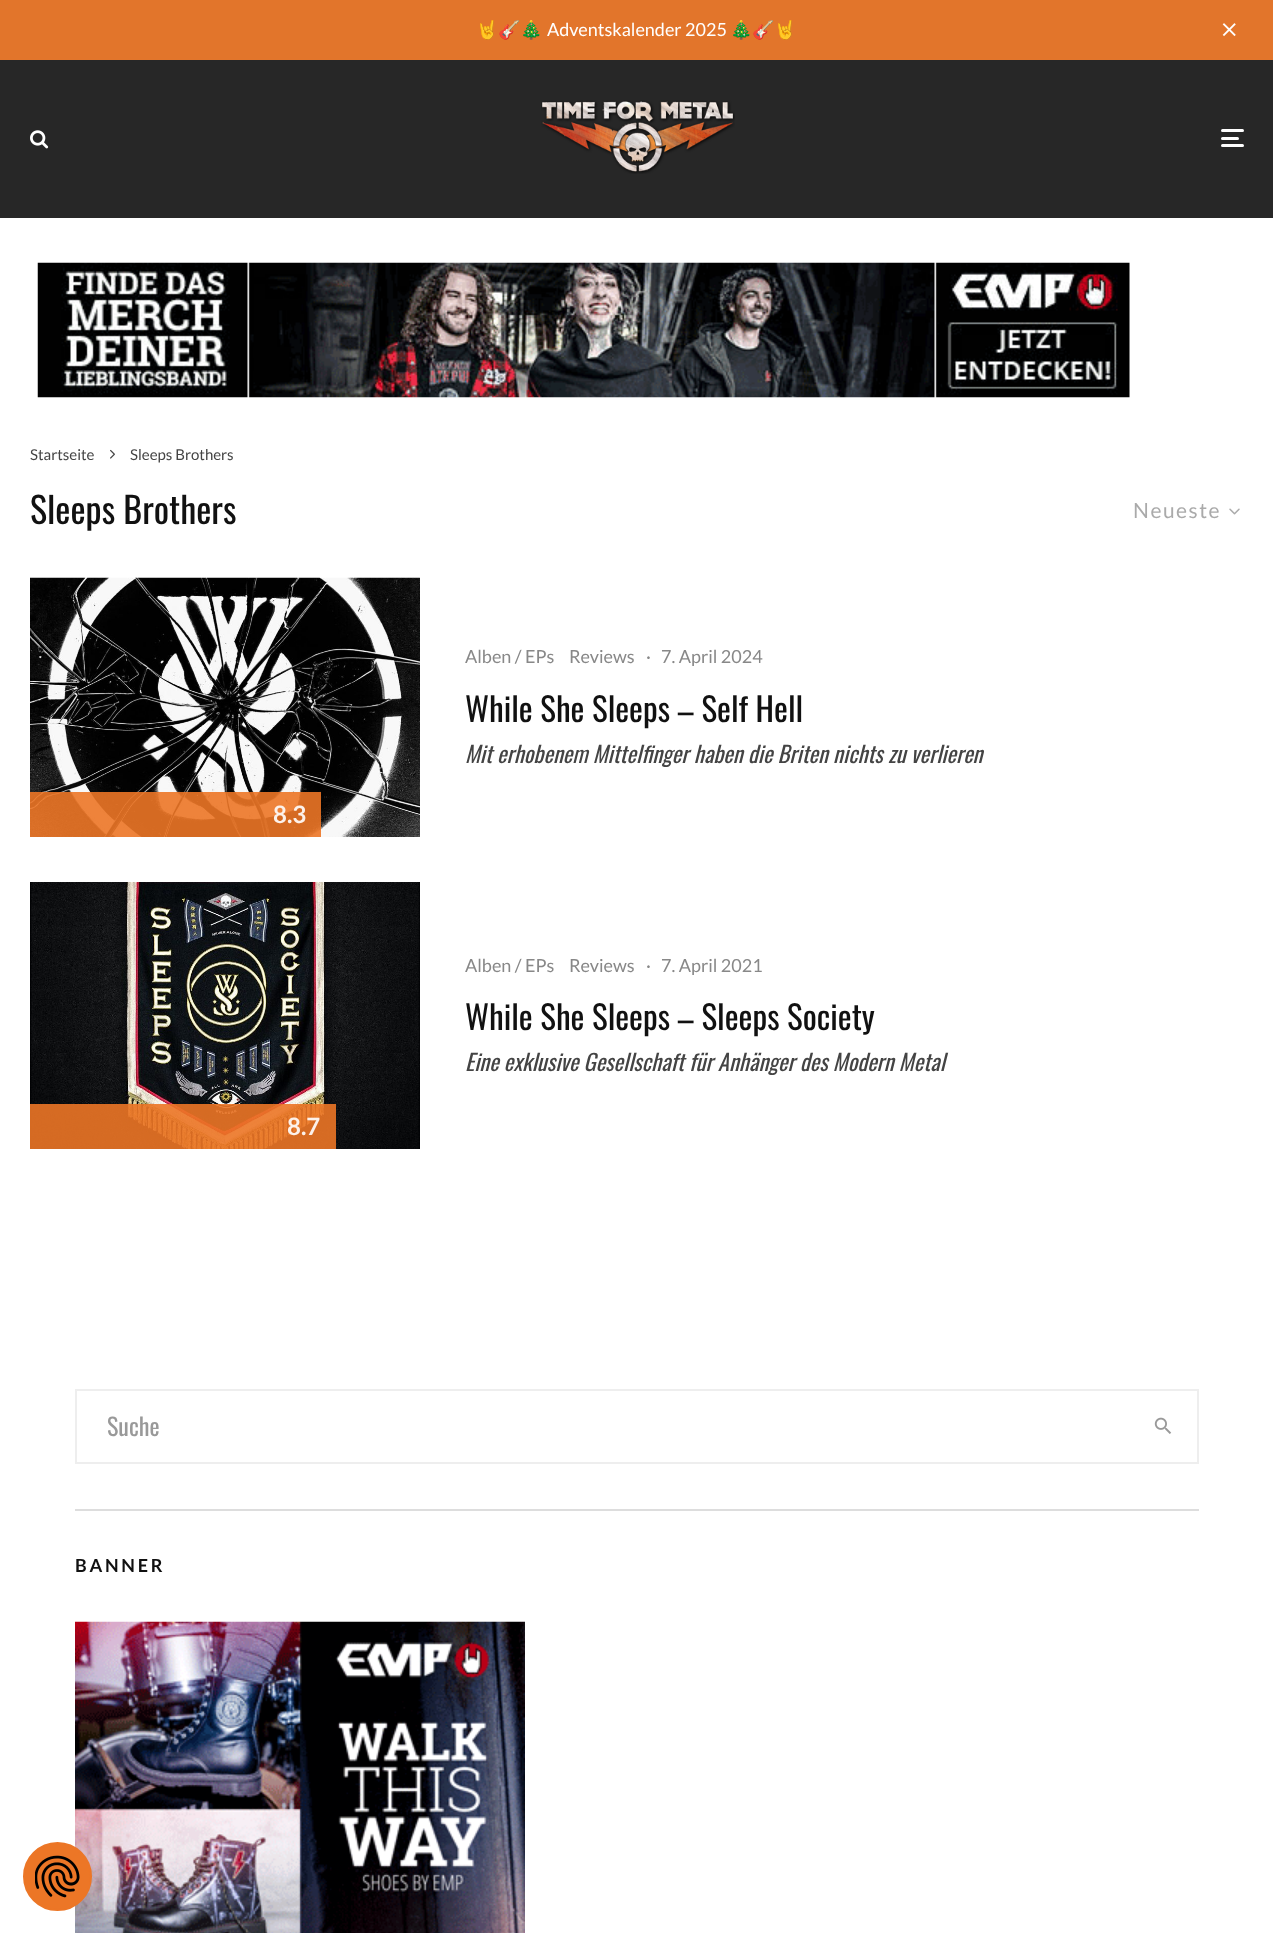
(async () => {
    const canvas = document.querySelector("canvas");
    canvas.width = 1273;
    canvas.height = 1933;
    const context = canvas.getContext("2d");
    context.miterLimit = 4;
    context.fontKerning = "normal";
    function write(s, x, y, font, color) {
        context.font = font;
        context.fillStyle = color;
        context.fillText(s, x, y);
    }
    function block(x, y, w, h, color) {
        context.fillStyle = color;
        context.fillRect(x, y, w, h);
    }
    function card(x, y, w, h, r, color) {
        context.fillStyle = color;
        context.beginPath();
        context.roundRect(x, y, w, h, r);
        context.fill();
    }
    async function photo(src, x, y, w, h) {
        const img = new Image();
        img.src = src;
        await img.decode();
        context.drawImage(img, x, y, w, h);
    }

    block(0, 0, 1273, 1933, "rgb(255, 255, 255)");
    block(0, 0, 1273, 60, "rgb(226, 117, 43)");
    write("🤘🎸🎄", 476, 36, "18px Noto Color Emoji", "rgb(255, 255, 255)");
    write("Adventskalender 2025", 547, 36, "18px Lato", "rgb(255, 255, 255)");
    write("🎄🎸🤘", 730, 36, "18px Noto Color Emoji", "rgb(255, 255, 255)");
    await photo("media/1.png", 1222, 23, 14, 14);
    block(0, 60, 1273, 158, "rgb(39, 39, 39)");
    await photo("media/2.png", 30, 130, 19, 19);
    await photo("media/3.png", 541, 100, 194, 74);
    card(1221, 137, 18, 3, 1.5, "rgb(255, 255, 255)");
    card(1221, 129, 23, 3, 1.5, "rgb(255, 255, 255)");
    card(1221, 144, 23, 3, 1.5, "rgb(255, 255, 255)");
    await photo("media/4.png", 37, 262, 1093, 136);
    write("Startseite", 30, 460, "15px Lato", "rgb(68, 68, 68)");
    await photo("media/5.png", 110, 449, 5, 10);
    write("Sleeps Brothers", 130, 460, "15px Lato", "rgb(68, 68, 68)");
    write("Sleeps Brothers", 30, 524, "36px Oswald", "rgb(17, 17, 17)");
    context.letterSpacing = "1.5px";
    write("Neueste", 1133, 518, "21px Lato", "rgb(170, 170, 170)");
    await photo("media/6.png", 1229, 508, 11, 7);
    context.letterSpacing = "0px";
    write("Alben / EPs", 465, 663, "18px Lato", "rgb(136, 136, 136)");
    write("Reviews", 569, 663, "18px Lato", "rgb(136, 136, 136)");
    write("·", 646, 663, "18px Lato", "rgb(136, 136, 136)");
    write("7. April 2024", 661, 663, "18px Lato", "rgb(136, 136, 136)");
    write("While She Sleeps – Self Hell", 465, 722, "33px Oswald", "rgb(17, 17, 17)");
    write("Mit erhobenem Mittelfinger haben die Briten nichts zu verlieren", 465, 763, "italic 22.5px Oswald", "rgb(68, 68, 68)");
    await photo("media/7.png", 30, 577, 390, 260);
    block(30, 792, 291, 45, "rgba(236, 118, 38, 0.9)");
    write("8.3", 273, 823, "bold 24px Lato", "rgb(252, 241, 234)");
    write("Alben / EPs", 465, 972, "18px Lato", "rgb(136, 136, 136)");
    write("Reviews", 569, 972, "18px Lato", "rgb(136, 136, 136)");
    write("·", 646, 972, "18px Lato", "rgb(136, 136, 136)");
    write("7. April 2021", 661, 972, "18px Lato", "rgb(136, 136, 136)");
    write("While She Sleeps – Sleeps Society", 465, 1030, "33px Oswald", "rgb(17, 17, 17)");
    write("Eine exklusive Gesellschaft für Anhänger des Modern Metal", 465, 1071, "italic 22.5px Oswald", "rgb(68, 68, 68)");
    await photo("media/8.png", 30, 882, 390, 267);
    block(30, 1104, 306, 45, "rgba(236, 118, 38, 0.9)");
    write("8.7", 287, 1135, "bold 24px Lato", "rgb(252, 241, 234)");
    block(75, 1509, 1124, 2, "rgb(221, 221, 221)");
    context.strokeStyle = "rgb(238, 238, 238)";
    context.lineWidth = 2;
    context.strokeRect(76, 1390, 1122, 73);
    write("Suche", 107, 1436, "24px Oswald", "rgb(153, 153, 153)");
    await photo("media/9.png", 1154, 1417, 18, 17);
    context.letterSpacing = "2.75px";
    write("BANNER", 75, 1572, "bold 18px Lato", "rgb(17, 17, 17)");
    await photo("media/10.png", 75, 1621, 450, 312);
    context.fillStyle = "rgb(236, 118, 38)";
    context.beginPath();
    context.arc(57.5, 1876.5, 33.5, 0, Math.PI * 2);
    context.fill();
    context.strokeStyle = "rgb(236, 118, 38)";
    context.stroke();
    await photo("media/11.png", 35, 1855, 45, 43);
})();
